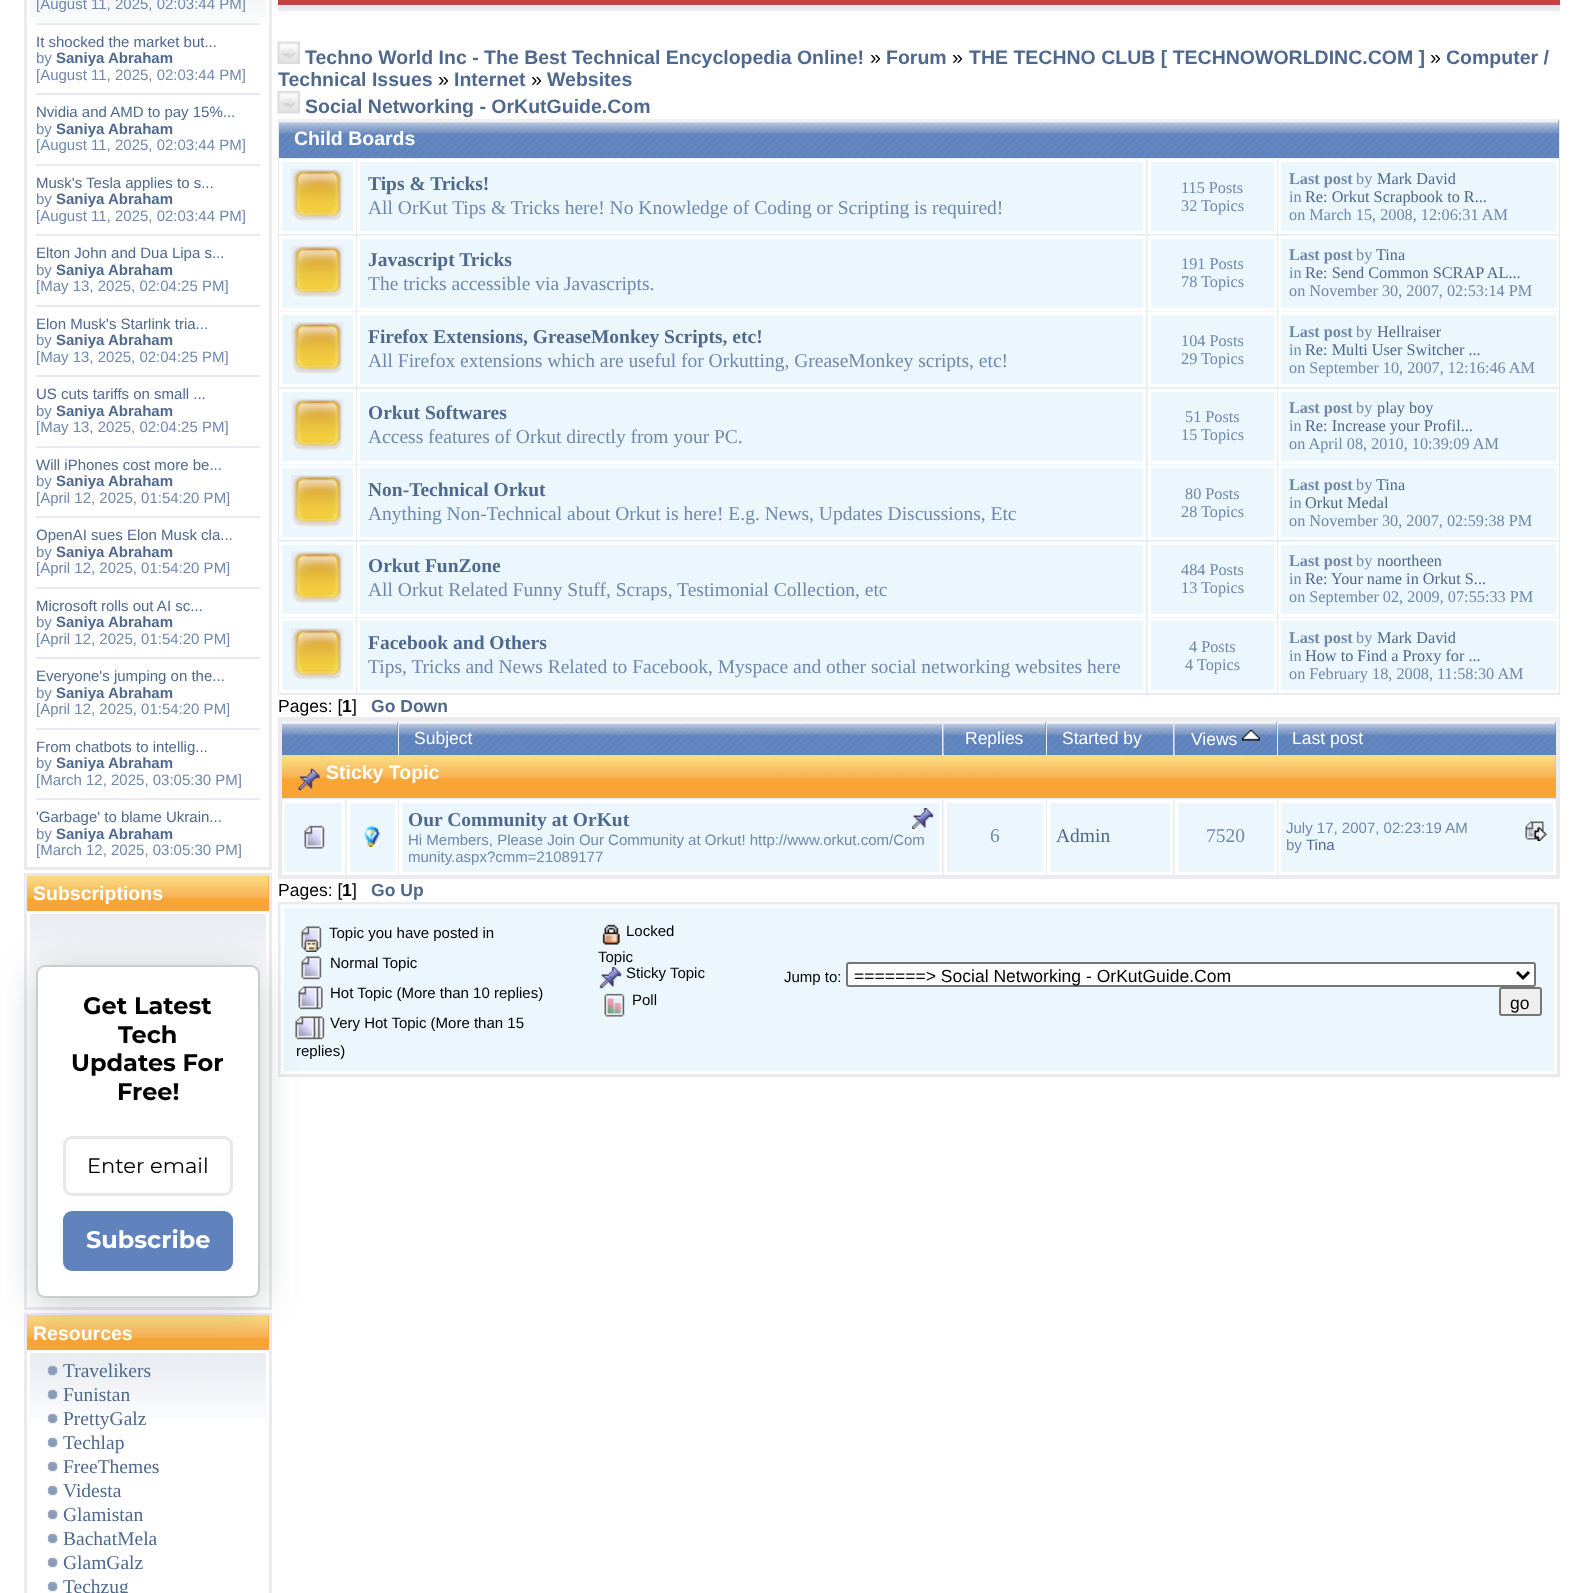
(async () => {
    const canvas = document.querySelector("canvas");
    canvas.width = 1578;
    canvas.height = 1593;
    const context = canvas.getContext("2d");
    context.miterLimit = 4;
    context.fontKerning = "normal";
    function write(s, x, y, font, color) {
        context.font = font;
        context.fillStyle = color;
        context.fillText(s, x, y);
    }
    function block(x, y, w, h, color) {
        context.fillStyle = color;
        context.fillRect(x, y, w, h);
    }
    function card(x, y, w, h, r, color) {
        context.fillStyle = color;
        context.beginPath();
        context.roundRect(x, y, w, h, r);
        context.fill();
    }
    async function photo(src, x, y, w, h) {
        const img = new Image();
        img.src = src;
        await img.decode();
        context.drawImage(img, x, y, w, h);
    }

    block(0, 0, 1578, 1593, "rgb(255, 255, 255)");
    block(24, 0, 248, 870, "rgb(235, 234, 240)");
    block(30, 22, 236, 842, "rgb(255, 255, 255)");
    await photo("media/1.png", 30, 0, 236, 22);
    context.strokeStyle = "rgb(255, 255, 255)";
    context.lineWidth = 3;
    context.strokeRect(28.5, -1.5, 239, 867);
    write("[August 11, 2025, 02:03:44 PM]", 36, 9, "15px Liberation Sans", "rgb(111, 136, 173)");
    block(36, 23, 224, 2, "rgb(235, 234, 240)");
    write("It shocked the market but...", 36, 47, "15px Liberation Sans", "rgb(79, 105, 142)");
    write("by", 36, 63, "15px Liberation Sans", "rgb(111, 136, 173)");
    write("Saniya Abraham", 56, 63, "bold 15px Liberation Sans", "rgb(79, 105, 142)");
    write("[August 11, 2025, 02:03:44 PM]", 36, 80, "15px Liberation Sans", "rgb(111, 136, 173)");
    block(36, 93, 224, 2, "rgb(235, 234, 240)");
    write("Nvidia and AMD to pay 15%...", 36, 117, "15px Liberation Sans", "rgb(79, 105, 142)");
    write("by", 36, 134, "15px Liberation Sans", "rgb(111, 136, 173)");
    write("Saniya Abraham", 56, 134, "bold 15px Liberation Sans", "rgb(79, 105, 142)");
    write("[August 11, 2025, 02:03:44 PM]", 36, 150, "15px Liberation Sans", "rgb(111, 136, 173)");
    block(36, 164, 224, 2, "rgb(235, 234, 240)");
    write("Musk's Tesla applies to s...", 36, 188, "15px Liberation Sans", "rgb(79, 105, 142)");
    write("by", 36, 204, "15px Liberation Sans", "rgb(111, 136, 173)");
    write("Saniya Abraham", 56, 204, "bold 15px Liberation Sans", "rgb(79, 105, 142)");
    write("[August 11, 2025, 02:03:44 PM]", 36, 221, "15px Liberation Sans", "rgb(111, 136, 173)");
    block(36, 234, 224, 2, "rgb(235, 234, 240)");
    write("Elton John and Dua Lipa s...", 36, 258, "15px Liberation Sans", "rgb(79, 105, 142)");
    write("by", 36, 275, "15px Liberation Sans", "rgb(111, 136, 173)");
    write("Saniya Abraham", 56, 275, "bold 15px Liberation Sans", "rgb(79, 105, 142)");
    write("[May 13, 2025, 02:04:25 PM]", 36, 291, "15px Liberation Sans", "rgb(111, 136, 173)");
    block(36, 305, 224, 2, "rgb(235, 234, 240)");
    write("Elon Musk's Starlink tria...", 36, 329, "15px Liberation Sans", "rgb(79, 105, 142)");
    write("by", 36, 345, "15px Liberation Sans", "rgb(111, 136, 173)");
    write("Saniya Abraham", 56, 345, "bold 15px Liberation Sans", "rgb(79, 105, 142)");
    write("[May 13, 2025, 02:04:25 PM]", 36, 362, "15px Liberation Sans", "rgb(111, 136, 173)");
    block(36, 375, 224, 2, "rgb(235, 234, 240)");
    write("US cuts tariffs on small ...", 36, 399, "15px Liberation Sans", "rgb(79, 105, 142)");
    write("by", 36, 416, "15px Liberation Sans", "rgb(111, 136, 173)");
    write("Saniya Abraham", 56, 416, "bold 15px Liberation Sans", "rgb(79, 105, 142)");
    write("[May 13, 2025, 02:04:25 PM]", 36, 432, "15px Liberation Sans", "rgb(111, 136, 173)");
    block(36, 446, 224, 2, "rgb(235, 234, 240)");
    write("Will iPhones cost more be...", 36, 470, "15px Liberation Sans", "rgb(79, 105, 142)");
    write("by", 36, 486, "15px Liberation Sans", "rgb(111, 136, 173)");
    write("Saniya Abraham", 56, 486, "bold 15px Liberation Sans", "rgb(79, 105, 142)");
    write("[April 12, 2025, 01:54:20 PM]", 36, 503, "15px Liberation Sans", "rgb(111, 136, 173)");
    block(36, 516, 224, 2, "rgb(235, 234, 240)");
    write("OpenAI sues Elon Musk cla...", 36, 540, "15px Liberation Sans", "rgb(79, 105, 142)");
    write("by", 36, 557, "15px Liberation Sans", "rgb(111, 136, 173)");
    write("Saniya Abraham", 56, 557, "bold 15px Liberation Sans", "rgb(79, 105, 142)");
    write("[April 12, 2025, 01:54:20 PM]", 36, 573, "15px Liberation Sans", "rgb(111, 136, 173)");
    block(36, 587, 224, 2, "rgb(235, 234, 240)");
    write("Microsoft rolls out AI sc...", 36, 611, "15px Liberation Sans", "rgb(79, 105, 142)");
    write("by", 36, 627, "15px Liberation Sans", "rgb(111, 136, 173)");
    write("Saniya Abraham", 56, 627, "bold 15px Liberation Sans", "rgb(79, 105, 142)");
    write("[April 12, 2025, 01:54:20 PM]", 36, 644, "15px Liberation Sans", "rgb(111, 136, 173)");
    block(36, 657, 224, 2, "rgb(235, 234, 240)");
    write("Everyone's jumping on the...", 36, 681, "15px Liberation Sans", "rgb(79, 105, 142)");
    write("by", 36, 698, "15px Liberation Sans", "rgb(111, 136, 173)");
    write("Saniya Abraham", 56, 698, "bold 15px Liberation Sans", "rgb(79, 105, 142)");
    write("[April 12, 2025, 01:54:20 PM]", 36, 714, "15px Liberation Sans", "rgb(111, 136, 173)");
    block(36, 728, 224, 2, "rgb(235, 234, 240)");
    write("From chatbots to intellig...", 36, 752, "15px Liberation Sans", "rgb(79, 105, 142)");
    write("by", 36, 768, "15px Liberation Sans", "rgb(111, 136, 173)");
    write("Saniya Abraham", 56, 768, "bold 15px Liberation Sans", "rgb(79, 105, 142)");
    write("[March 12, 2025, 03:05:30 PM]", 36, 785, "15px Liberation Sans", "rgb(111, 136, 173)");
    block(36, 798, 224, 2, "rgb(235, 234, 240)");
    write("'Garbage' to blame Ukrain...", 36, 822, "15px Liberation Sans", "rgb(79, 105, 142)");
    write("by", 36, 839, "15px Liberation Sans", "rgb(111, 136, 173)");
    write("Saniya Abraham", 56, 839, "bold 15px Liberation Sans", "rgb(79, 105, 142)");
    write("[March 12, 2025, 03:05:30 PM]", 36, 855, "15px Liberation Sans", "rgb(111, 136, 173)");
    block(24, 873, 248, 437, "rgb(235, 234, 240)");
    block(27, 876, 242, 35, "rgb(249, 165, 53)");
    await photo("media/2.png", 27, 875, 242, 24);
    write("Subscriptions", 33, 900, "bold 19.5px Liberation Sans", "rgb(255, 255, 255)");
    block(30, 979, 236, 325, "rgb(255, 255, 255)");
    await photo("media/3.png", 30, 914, 236, 65);
    context.strokeRect(28.5, 912.5, 239, 393);
    block(24, 1313, 248, 280, "rgb(235, 234, 240)");
    block(27, 1316, 242, 34, "rgb(249, 165, 53)");
    await photo("media/4.png", 27, 1315, 242, 23);
    await photo("media/5.png", 30, 1353, 236, 65);
    block(30, 1418, 236, 175, "rgb(255, 255, 255)");
    context.strokeRect(28.5, 1351.5, 239, 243);
    block(278, 902, 1282, 175, "rgb(235, 234, 240)");
    block(280, 904, 1277, 170, "rgb(235, 247, 253)");
    context.strokeRect(282.5, 906.5, 1273, 166);
    await photo("media/28.png", 301, 926, 21, 26);
    await photo("media/29.png", 301, 956, 21, 24);
    await photo("media/30.png", 298, 986, 25, 24);
    await photo("media/31.png", 295, 1016, 30, 24);
    context.fillStyle = "rgba(34, 60, 47, 0.25)";
    context.filter = "blur(19px)";
    context.beginPath();
    context.roundRect(36, 972, 224, 333, 9);
    context.fill();
    context.filter = "none";
    context.fillStyle = "rgb(255, 255, 255)";
    context.beginPath();
    context.roundRect(37, 966, 222, 331, 8);
    context.fill();
    context.strokeStyle = "rgb(204, 204, 204)";
    context.lineWidth = 2;
    context.stroke();
    write("Get Latest", 83, 1014, "100 24px Montserrat", "rgb(0, 0, 0)");
    write("Tech", 118, 1043, "100 24px Montserrat", "rgb(0, 0, 0)");
    write("Updates For", 71, 1071, "100 24px Montserrat", "rgb(0, 0, 0)");
    write("Free!", 117, 1100, "100 24px Montserrat", "rgb(0, 0, 0)");
    context.beginPath();
    context.roundRect(64.5, 1137.5, 167, 57, 7.5);
    context.strokeStyle = "rgb(233, 232, 232)";
    context.lineWidth = 3;
    context.stroke();
    write("Enter email", 87, 1173, "100 21px 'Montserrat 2'", "rgb(0, 0, 0)");
    card(63, 1211, 170, 60, 9, "rgb(96, 131, 190)");
    write("Subscribe", 86, 1248, "100 24px Montserrat", "rgb(255, 255, 255)");
    write("Resources", 33, 1340, "bold 19.5px Liberation Sans", "rgb(255, 255, 255)");
    await photo("media/6.png", 47, 1365, 11, 11);
    write("Travelikers", 63, 1377, "19.5px Liberation Serif", "rgb(79, 105, 142)");
    await photo("media/7.png", 47, 1389, 11, 11);
    write("Funistan", 63, 1401, "19.5px Liberation Serif", "rgb(79, 105, 142)");
    await photo("media/8.png", 47, 1413, 11, 11);
    write("PrettyGalz", 63, 1425, "19.5px Liberation Serif", "rgb(79, 105, 142)");
    await photo("media/9.png", 47, 1437, 11, 11);
    write("Techlap", 63, 1449, "19.5px Liberation Serif", "rgb(79, 105, 142)");
    await photo("media/9.png", 47, 1461, 11, 11);
    write("FreeThemes", 63, 1473, "19.5px Liberation Serif", "rgb(79, 105, 142)");
    await photo("media/9.png", 47, 1485, 11, 11);
    write("Videsta", 63, 1497, "19.5px Liberation Serif", "rgb(79, 105, 142)");
    await photo("media/9.png", 47, 1509, 11, 11);
    write("Glamistan", 63, 1521, "19.5px Liberation Serif", "rgb(79, 105, 142)");
    await photo("media/9.png", 47, 1533, 11, 11);
    write("BachatMela", 63, 1545, "19.5px Liberation Serif", "rgb(79, 105, 142)");
    await photo("media/9.png", 47, 1557, 11, 11);
    write("GlamGalz", 63, 1569, "19.5px Liberation Serif", "rgb(79, 105, 142)");
    await photo("media/9.png", 47, 1581, 11, 11);
    write("Techzug", 63, 1593, "19.5px Liberation Serif", "rgb(79, 105, 142)");
    block(278, 0, 1282, 5, "rgb(195, 66, 66)");
    block(278, 5, 1282, 6, "rgb(235, 234, 240)");
    await photo("media/10.png", 277, 41, 23, 23);
    write("Techno World Inc - The Best Technical Encyclopedia Online!", 305, 64, "bold 19.5px Liberation Sans", "rgb(79, 105, 142)");
    write("»", 870, 64, "19.5px Liberation Sans", "rgb(0, 0, 0)");
    write("Forum", 886, 64, "bold 19.5px Liberation Sans", "rgb(79, 105, 142)");
    write("»", 952, 64, "19.5px Liberation Sans", "rgb(0, 0, 0)");
    write("THE TECHNO CLUB [ TECHNOWORLDINC.COM ]", 969, 64, "bold 19.5px Liberation Sans", "rgb(79, 105, 142)");
    write("»", 1430, 64, "19.5px Liberation Sans", "rgb(0, 0, 0)");
    write("Computer /", 1446, 64, "bold 19.5px Liberation Sans", "rgb(79, 105, 142)");
    write("Technical Issues", 278, 86, "bold 19.5px Liberation Sans", "rgb(79, 105, 142)");
    write("»", 438, 86, "19.5px Liberation Sans", "rgb(0, 0, 0)");
    write("Internet", 454, 86, "bold 19.5px Liberation Sans", "rgb(79, 105, 142)");
    write("»", 531, 86, "19.5px Liberation Sans", "rgb(0, 0, 0)");
    write("Websites", 547, 86, "bold 19.5px Liberation Sans", "rgb(79, 105, 142)");
    await photo("media/11.png", 277, 91, 23, 23);
    write("Social Networking - OrKutGuide.Com", 305, 113, "bold 19.5px Liberation Sans", "rgb(79, 105, 142)");
    block(278, 119, 1282, 576, "rgb(235, 234, 240)");
    block(279, 120, 1280, 38, "rgb(96, 131, 190)");
    await photo("media/12.png", 279, 119, 1280, 38);
    write("Child Boards", 294, 145, "bold 19.5px Liberation Sans", "rgb(255, 255, 255)");
    block(279, 158, 77, 73, "rgb(235, 247, 253)");
    context.strokeStyle = "rgb(255, 255, 255)";
    context.strokeRect(280.5, 160.5, 74, 72);
    await photo("media/13.png", 291, 169, 53, 53);
    block(357, 158, 789, 73, "rgb(235, 247, 253)");
    context.strokeRect(358.5, 160.5, 786, 72);
    write("Tips & Tricks!", 368, 190, "bold 19.5px Liberation Serif", "rgb(79, 105, 142)");
    write("All OrKut Tips & Tricks here! No Knowledge of Coding or Scripting is required!", 368, 214, "19.5px Liberation Serif", "rgb(111, 136, 173)");
    block(1147, 158, 130, 76, "rgb(235, 247, 253)");
    context.strokeRect(1149.5, 160.5, 126, 72);
    write("115 Posts", 1181, 193, "16.25px Liberation Serif", "rgb(111, 136, 173)");
    write("32 Topics", 1181, 211, "16.25px Liberation Serif", "rgb(111, 136, 173)");
    block(1278, 158, 281, 73, "rgb(235, 247, 253)");
    context.strokeRect(1279.5, 160.5, 278, 72);
    write("Last post", 1289, 184, "bold 16.25px Liberation Serif", "rgb(111, 136, 173)");
    write("by", 1356, 184, "16.25px Liberation Serif", "rgb(111, 136, 173)");
    write("Mark David", 1377, 184, "16.25px Liberation Serif", "rgb(79, 105, 142)");
    write("in", 1289, 202, "16.25px Liberation Serif", "rgb(111, 136, 173)");
    write("Re: Orkut Scrapbook to R...", 1305, 202, "16.25px Liberation Serif", "rgb(79, 105, 142)");
    write("on March 15, 2008, 12:06:31 AM", 1289, 220, "16.25px Liberation Serif", "rgb(111, 136, 173)");
    block(279, 235, 77, 73, "rgb(235, 247, 253)");
    context.strokeRect(280.5, 237.5, 74, 72);
    await photo("media/14.png", 291, 245, 53, 53);
    block(357, 235, 789, 73, "rgb(235, 247, 253)");
    context.strokeRect(358.5, 237.5, 786, 72);
    write("Javascript Tricks", 368, 266, "bold 19.5px Liberation Serif", "rgb(79, 105, 142)");
    write("The tricks accessible via Javascripts.", 368, 290, "19.5px Liberation Serif", "rgb(111, 136, 173)");
    block(1147, 235, 130, 75, "rgb(235, 247, 253)");
    context.strokeRect(1149.5, 237.5, 126, 72);
    write("191 Posts", 1181, 269, "16.25px Liberation Serif", "rgb(111, 136, 173)");
    write("78 Topics", 1181, 287, "16.25px Liberation Serif", "rgb(111, 136, 173)");
    block(1278, 235, 281, 73, "rgb(235, 247, 253)");
    context.strokeRect(1279.5, 237.5, 278, 72);
    write("Last post", 1289, 260, "bold 16.25px Liberation Serif", "rgb(111, 136, 173)");
    write("by", 1356, 260, "16.25px Liberation Serif", "rgb(111, 136, 173)");
    write("Tina", 1376, 260, "16.25px Liberation Serif", "rgb(79, 105, 142)");
    write("in", 1289, 278, "16.25px Liberation Serif", "rgb(111, 136, 173)");
    write("Re: Send Common SCRAP AL...", 1305, 278, "16.25px Liberation Serif", "rgb(79, 105, 142)");
    write("on November 30, 2007, 02:53:14 PM", 1289, 296, "16.25px Liberation Serif", "rgb(111, 136, 173)");
    block(279, 311, 77, 73, "rgb(235, 247, 253)");
    context.strokeRect(280.5, 313.5, 74, 72);
    await photo("media/13.png", 291, 322, 53, 53);
    block(357, 311, 789, 73, "rgb(235, 247, 253)");
    context.strokeRect(358.5, 313.5, 786, 72);
    write("Firefox Extensions, GreaseMonkey Scripts, etc!", 368, 343, "bold 19.5px Liberation Serif", "rgb(79, 105, 142)");
    write("All Firefox extensions which are useful for Orkutting, GreaseMonkey scripts, etc!", 368, 367, "19.5px Liberation Serif", "rgb(111, 136, 173)");
    block(1147, 311, 130, 76, "rgb(235, 247, 253)");
    context.strokeRect(1149.5, 313.5, 126, 72);
    write("104 Posts", 1181, 346, "16.25px Liberation Serif", "rgb(111, 136, 173)");
    write("29 Topics", 1181, 364, "16.25px Liberation Serif", "rgb(111, 136, 173)");
    block(1278, 311, 281, 73, "rgb(235, 247, 253)");
    context.strokeRect(1279.5, 313.5, 278, 72);
    write("Last post", 1289, 337, "bold 16.25px Liberation Serif", "rgb(111, 136, 173)");
    write("by", 1356, 337, "16.25px Liberation Serif", "rgb(111, 136, 173)");
    write("Hellraiser", 1377, 337, "16.25px Liberation Serif", "rgb(79, 105, 142)");
    write("in", 1289, 355, "16.25px Liberation Serif", "rgb(111, 136, 173)");
    write("Re: Multi User Switcher ...", 1305, 355, "16.25px Liberation Serif", "rgb(79, 105, 142)");
    write("on September 10, 2007, 12:16:46 AM", 1289, 373, "16.25px Liberation Serif", "rgb(111, 136, 173)");
    block(279, 388, 77, 73, "rgb(235, 247, 253)");
    context.strokeRect(280.5, 390.5, 74, 72);
    await photo("media/14.png", 291, 398, 53, 53);
    block(357, 388, 789, 73, "rgb(235, 247, 253)");
    context.strokeRect(358.5, 390.5, 786, 72);
    write("Orkut Softwares", 368, 419, "bold 19.5px Liberation Serif", "rgb(79, 105, 142)");
    write("Access features of Orkut directly from your PC.", 368, 443, "19.5px Liberation Serif", "rgb(111, 136, 173)");
    block(1147, 388, 130, 75, "rgb(235, 247, 253)");
    context.strokeRect(1149.5, 390.5, 126, 72);
    write("51 Posts", 1185, 422, "16.25px Liberation Serif", "rgb(111, 136, 173)");
    write("15 Topics", 1181, 440, "16.25px Liberation Serif", "rgb(111, 136, 173)");
    block(1278, 388, 281, 73, "rgb(235, 247, 253)");
    context.strokeRect(1279.5, 390.5, 278, 72);
    write("Last post", 1289, 413, "bold 16.25px Liberation Serif", "rgb(111, 136, 173)");
    write("by", 1356, 413, "16.25px Liberation Serif", "rgb(111, 136, 173)");
    write("play boy", 1377, 413, "16.25px Liberation Serif", "rgb(79, 105, 142)");
    write("in", 1289, 431, "16.25px Liberation Serif", "rgb(111, 136, 173)");
    write("Re: Increase your Profil...", 1305, 431, "16.25px Liberation Serif", "rgb(79, 105, 142)");
    write("on April 08, 2010, 10:39:09 AM", 1289, 449, "16.25px Liberation Serif", "rgb(111, 136, 173)");
    block(279, 464, 77, 73, "rgb(235, 247, 253)");
    context.strokeRect(280.5, 466.5, 74, 72);
    await photo("media/13.png", 291, 475, 53, 53);
    block(357, 464, 789, 73, "rgb(235, 247, 253)");
    context.strokeRect(358.5, 466.5, 786, 72);
    write("Non-Technical Orkut", 368, 496, "bold 19.5px Liberation Serif", "rgb(79, 105, 142)");
    write("Anything Non-Technical about Orkut is here! E.g. News, Updates Discussions, Etc", 368, 520, "19.5px Liberation Serif", "rgb(111, 136, 173)");
    block(1147, 464, 130, 76, "rgb(235, 247, 253)");
    context.strokeRect(1149.5, 466.5, 126, 72);
    write("80 Posts", 1185, 499, "16.25px Liberation Serif", "rgb(111, 136, 173)");
    write("28 Topics", 1181, 517, "16.25px Liberation Serif", "rgb(111, 136, 173)");
    block(1278, 464, 281, 73, "rgb(235, 247, 253)");
    context.strokeRect(1279.5, 466.5, 278, 72);
    write("Last post", 1289, 490, "bold 16.25px Liberation Serif", "rgb(111, 136, 173)");
    write("by", 1356, 490, "16.25px Liberation Serif", "rgb(111, 136, 173)");
    write("Tina", 1376, 490, "16.25px Liberation Serif", "rgb(79, 105, 142)");
    write("in", 1289, 508, "16.25px Liberation Serif", "rgb(111, 136, 173)");
    write("Orkut Medal", 1305, 508, "16.25px Liberation Serif", "rgb(79, 105, 142)");
    write("on November 30, 2007, 02:59:38 PM", 1289, 526, "16.25px Liberation Serif", "rgb(111, 136, 173)");
    block(279, 541, 77, 73, "rgb(235, 247, 253)");
    context.strokeRect(280.5, 543.5, 74, 72);
    await photo("media/14.png", 291, 551, 53, 53);
    block(357, 541, 789, 73, "rgb(235, 247, 253)");
    context.strokeRect(358.5, 543.5, 786, 72);
    write("Orkut FunZone", 368, 572, "bold 19.5px Liberation Serif", "rgb(79, 105, 142)");
    write("All Orkut Related Funny Stuff, Scraps, Testimonial Collection, etc", 368, 596, "19.5px Liberation Serif", "rgb(111, 136, 173)");
    block(1147, 541, 130, 75, "rgb(235, 247, 253)");
    context.strokeRect(1149.5, 543.5, 126, 72);
    write("484 Posts", 1181, 575, "16.25px Liberation Serif", "rgb(111, 136, 173)");
    write("13 Topics", 1181, 593, "16.25px Liberation Serif", "rgb(111, 136, 173)");
    block(1278, 541, 281, 73, "rgb(235, 247, 253)");
    context.strokeRect(1279.5, 543.5, 278, 72);
    write("Last post", 1289, 566, "bold 16.25px Liberation Serif", "rgb(111, 136, 173)");
    write("by", 1356, 566, "16.25px Liberation Serif", "rgb(111, 136, 173)");
    write("noortheen", 1377, 566, "16.25px Liberation Serif", "rgb(79, 105, 142)");
    write("in", 1289, 584, "16.25px Liberation Serif", "rgb(111, 136, 173)");
    write("Re: Your name in Orkut S...", 1305, 584, "16.25px Liberation Serif", "rgb(79, 105, 142)");
    write("on September 02, 2009, 07:55:33 PM", 1289, 602, "16.25px Liberation Serif", "rgb(111, 136, 173)");
    block(279, 617, 77, 73, "rgb(235, 247, 253)");
    context.strokeRect(280.5, 619.5, 74, 72);
    await photo("media/13.png", 291, 628, 53, 53);
    block(357, 617, 789, 73, "rgb(235, 247, 253)");
    context.strokeRect(358.5, 619.5, 786, 72);
    write("Facebook and Others", 368, 649, "bold 19.5px Liberation Serif", "rgb(79, 105, 142)");
    write("Tips, Tricks and News Related to Facebook, Myspace and other social networking websites here", 368, 673, "19.5px Liberation Serif", "rgb(111, 136, 173)");
    block(1147, 617, 130, 76, "rgb(235, 247, 253)");
    context.strokeRect(1149.5, 619.5, 126, 72);
    write("4 Posts", 1189, 652, "16.25px Liberation Serif", "rgb(111, 136, 173)");
    write("4 Topics", 1185, 670, "16.25px Liberation Serif", "rgb(111, 136, 173)");
    block(1278, 617, 281, 73, "rgb(235, 247, 253)");
    context.strokeRect(1279.5, 619.5, 278, 72);
    write("Last post", 1289, 643, "bold 16.25px Liberation Serif", "rgb(111, 136, 173)");
    write("by", 1356, 643, "16.25px Liberation Serif", "rgb(111, 136, 173)");
    write("Mark David", 1377, 643, "16.25px Liberation Serif", "rgb(79, 105, 142)");
    write("in", 1289, 661, "16.25px Liberation Serif", "rgb(111, 136, 173)");
    write("How to Find a Proxy for ...", 1305, 661, "16.25px Liberation Serif", "rgb(79, 105, 142)");
    write("on February 18, 2008, 11:58:30 AM", 1289, 679, "16.25px Liberation Serif", "rgb(111, 136, 173)");
    write("Pages: [", 278, 712, "17.55px Liberation Sans", "rgb(0, 0, 0)");
    write("1", 342, 712, "bold 17.55px Liberation Sans", "rgb(0, 0, 0)");
    write("]", 352, 712, "17.55px Liberation Sans", "rgb(0, 0, 0)");
    write("Go Down", 371, 712, "bold 17.55px Liberation Sans", "rgb(79, 105, 142)");
    block(278, 717, 1282, 162, "rgb(235, 234, 240)");
    block(282, 722, 116, 33, "rgb(96, 131, 190)");
    await photo("media/15.png", 282, 721, 116, 33);
    block(399, 754, 543, 1, "rgb(96, 131, 190)");
    await photo("media/16.png", 399, 721, 543, 33);
    write("Subject", 414, 744, "17.5px Liberation Sans", "rgb(255, 255, 255)");
    block(944, 722, 102, 33, "rgb(96, 131, 190)");
    await photo("media/17.png", 943, 721, 103, 33);
    write("Replies", 965, 744, "17.5px Liberation Sans", "rgb(255, 255, 255)");
    block(1047, 754, 126, 1, "rgb(96, 131, 190)");
    await photo("media/18.png", 1047, 721, 126, 33);
    write("Started by", 1062, 744, "17.5px Liberation Sans", "rgb(255, 255, 255)");
    block(1175, 722, 102, 33, "rgb(96, 131, 190)");
    await photo("media/19.png", 1174, 721, 103, 33);
    write("Views", 1191, 745, "17.5px Liberation Sans", "rgb(255, 255, 255)");
    await photo("media/20.png", 1242, 729, 18, 12);
    block(1278, 722, 278, 33, "rgb(96, 131, 190)");
    await photo("media/21.png", 1278, 721, 278, 33);
    write("Last post", 1292, 744, "17.5px Liberation Sans", "rgb(255, 255, 255)");
    block(282, 756, 1274, 42, "rgb(249, 165, 53)");
    await photo("media/22.png", 282, 755, 1274, 24);
    await photo("media/23.png", 298, 768, 22, 23);
    write("Sticky Topic", 326, 779, "bold 19.5px Liberation Sans", "rgb(255, 255, 255)");
    block(282, 799, 63, 73, "rgb(235, 247, 253)");
    context.strokeRect(283.5, 801.5, 60, 72);
    await photo("media/24.png", 304, 825, 21, 24);
    block(346, 799, 52, 75, "rgb(235, 247, 253)");
    context.strokeRect(348.5, 801.5, 48, 72);
    await photo("media/25.png", 364, 825, 16, 22);
    block(399, 799, 543, 73, "rgb(235, 247, 253)");
    context.strokeRect(400.5, 801.5, 540, 72);
    write("Our Community at OrKut", 408, 826, "bold 19.5px Liberation Serif", "rgb(79, 105, 142)");
    await photo("media/26.png", 912, 808, 21, 21);
    write("Hi Members, Please Join Our Community at Orkut! http://www.orkut.com/Com", 408, 845, "15px Liberation Sans", "rgb(111, 136, 173)");
    write("munity.aspx?cmm=21089177", 408, 862, "15px Liberation Sans", "rgb(111, 136, 173)");
    block(943, 799, 103, 75, "rgb(235, 247, 253)");
    context.strokeRect(945.5, 801.5, 99, 72);
    write("6", 990, 842, "19.5px Liberation Serif", "rgb(111, 136, 173)");
    block(1047, 799, 126, 73, "rgb(235, 247, 253)");
    context.strokeRect(1048.5, 801.5, 123, 72);
    write("Admin", 1056, 842, "19.5px Liberation Serif", "rgb(79, 105, 142)");
    block(1174, 799, 103, 75, "rgb(235, 247, 253)");
    context.strokeRect(1176.5, 801.5, 99, 72);
    write("7520", 1206, 842, "19.5px Liberation Serif", "rgb(111, 136, 173)");
    block(1278, 799, 278, 73, "rgb(235, 247, 253)");
    context.strokeRect(1279.5, 801.5, 275, 72);
    write("July 17, 2007, 02:23:19 AM", 1286, 833, "15px Liberation Sans", "rgb(111, 136, 173)");
    await photo("media/27.png", 1525, 821, 22, 20);
    write("by", 1286, 850, "15px Liberation Sans", "rgb(111, 136, 173)");
    write("Tina", 1306, 850, "15px Liberation Sans", "rgb(79, 105, 142)");
    write("Pages: [", 278, 896, "17.55px Liberation Sans", "rgb(0, 0, 0)");
    write("1", 342, 896, "bold 17.55px Liberation Sans", "rgb(0, 0, 0)");
    write("]", 352, 896, "17.55px Liberation Sans", "rgb(0, 0, 0)");
    write("Go Up", 371, 896, "bold 17.55px Liberation Sans", "rgb(79, 105, 142)");
    write("Topic you have posted in", 329, 938, "15px Liberation Sans", "rgb(0, 0, 0)");
    write("Normal Topic", 330, 968, "15px Liberation Sans", "rgb(0, 0, 0)");
    write("Hot Topic (More than 10 replies)", 330, 998, "15px Liberation Sans", "rgb(0, 0, 0)");
    write("Very Hot Topic (More than 15", 330, 1028, "15px Liberation Sans", "rgb(0, 0, 0)");
    write("replies)", 296, 1056, "15px Liberation Sans", "rgb(0, 0, 0)");
    await photo("media/32.png", 602, 924, 18, 21);
    write("Locked", 626, 936, "15px Liberation Sans", "rgb(0, 0, 0)");
    write("Topic", 598, 962, "15px Liberation Sans", "rgb(0, 0, 0)");
    await photo("media/33.png", 599, 966, 23, 23);
    write("Sticky Topic", 626, 978, "15px Liberation Sans", "rgb(0, 0, 0)");
    await photo("media/34.png", 604, 993, 21, 24);
    write("Poll", 632, 1005, "15px Liberation Sans", "rgb(0, 0, 0)");
    write("Jump to:", 784, 982, "15px Liberation Sans", "rgb(0, 0, 0)");
    context.fillStyle = "rgb(255, 255, 255)";
    context.beginPath();
    context.roundRect(847, 963, 688, 23, 2);
    context.fill();
    context.strokeStyle = "rgb(118, 118, 118)";
    context.lineWidth = 2;
    context.stroke();
    context.beginPath();
    context.moveTo(1517, 972);
    context.lineTo(1523, 978);
    context.lineTo(1529, 972);
    context.strokeStyle = "rgb(0, 0, 0)";
    context.lineWidth = 3;
    context.stroke();
    write("=======> Social Networking - OrKutGuide.Com", 854, 982, "17.55px Liberation Sans", "rgb(0, 0, 0)");
    context.fillStyle = "rgb(239, 239, 239)";
    context.beginPath();
    context.roundRect(1500, 988, 41, 27, 2);
    context.fill();
    context.strokeStyle = "rgb(118, 118, 118)";
    context.lineWidth = 2;
    context.stroke();
    write("go", 1510, 1009, "17.55px Liberation Sans", "rgb(0, 0, 0)");
})();
